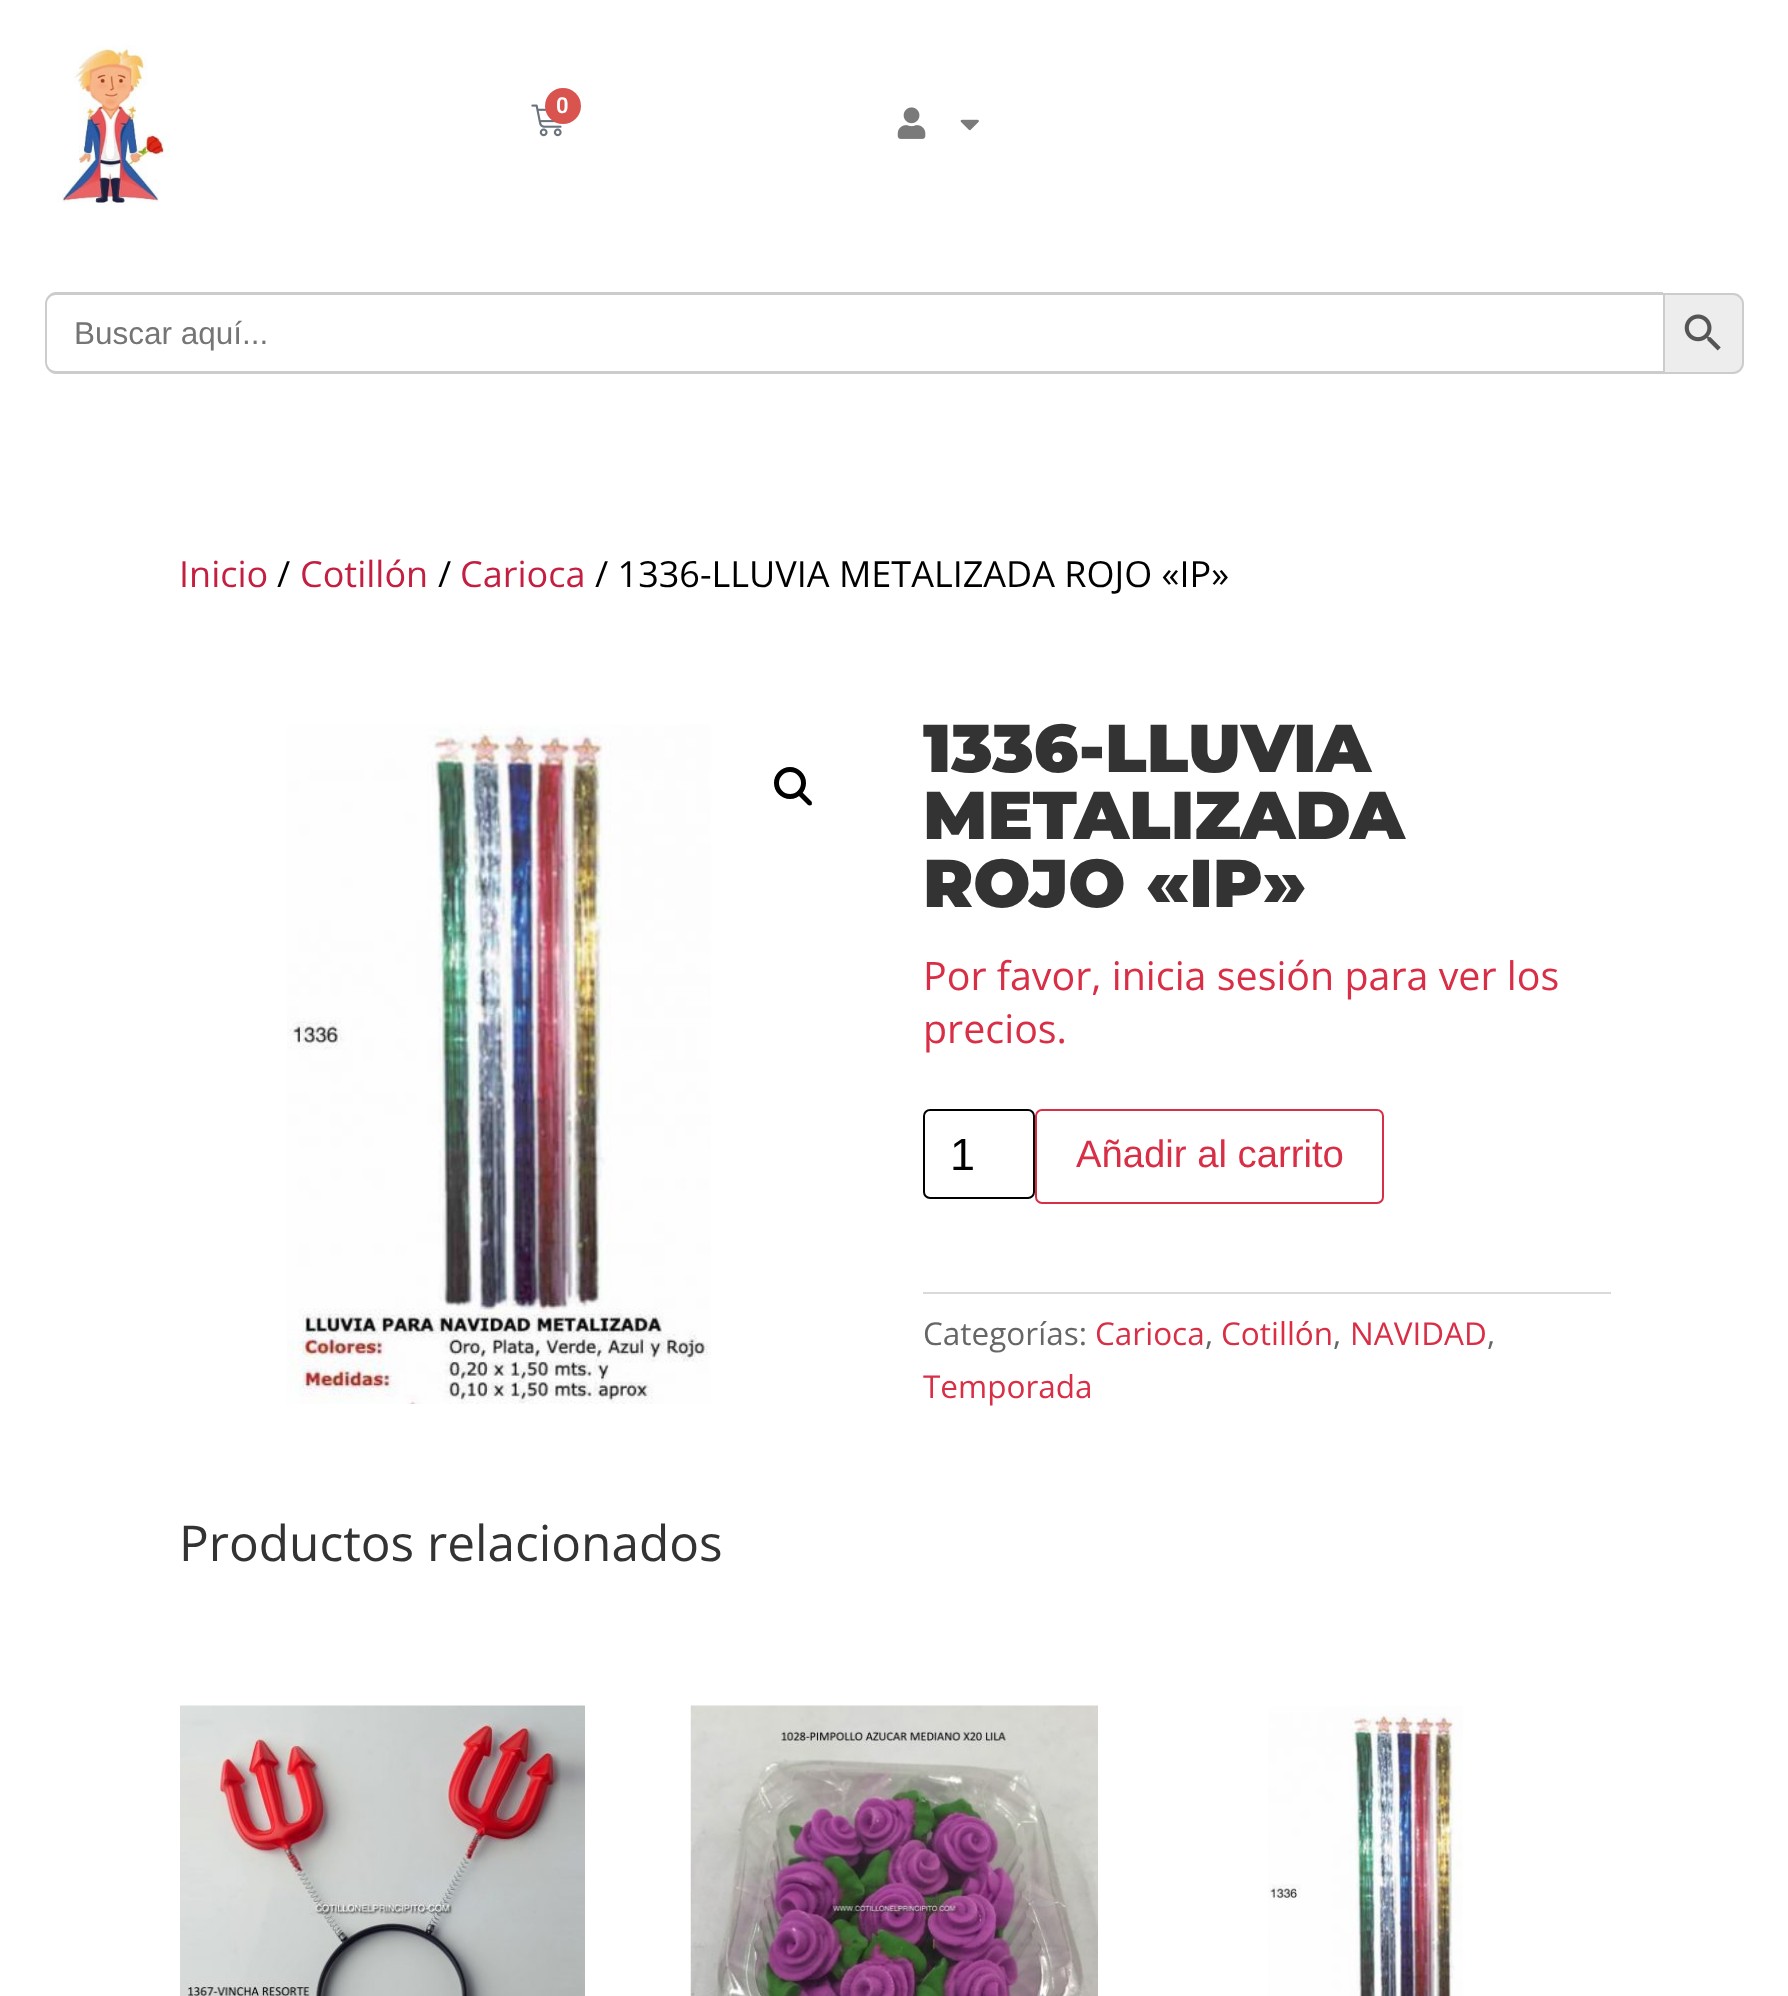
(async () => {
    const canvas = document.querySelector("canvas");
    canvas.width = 1788;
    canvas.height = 1996;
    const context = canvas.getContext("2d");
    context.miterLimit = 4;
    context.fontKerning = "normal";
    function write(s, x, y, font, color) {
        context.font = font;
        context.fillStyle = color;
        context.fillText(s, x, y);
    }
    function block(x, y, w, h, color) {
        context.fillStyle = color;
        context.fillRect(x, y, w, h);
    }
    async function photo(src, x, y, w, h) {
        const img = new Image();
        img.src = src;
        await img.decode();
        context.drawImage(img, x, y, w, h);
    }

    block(0, 0, 1788, 1996, "rgb(255, 255, 255)");
    await photo("media/1.png", 57, 45, 113, 158);
    await photo("media/2.png", 531, 104, 31, 33);
    context.fillStyle = "rgb(217, 83, 79)";
    context.beginPath();
    context.arc(563, 106, 18, 0, Math.PI * 2);
    context.fill();
    write("0", 556, 113, "600 22px Roboto", "rgb(255, 255, 255)");
    await photo("media/3.png", 897, 107, 29, 32);
    await photo("media/4.png", 960, 119, 19, 12);
    context.fillStyle = "rgb(204, 204, 204)";
    context.beginPath();
    context.moveTo(56, 292);
    context.lineTo(1663, 292);
    context.lineTo(1663, 374);
    context.lineTo(56, 374);
    context.bezierCurveTo(50, 374, 45, 368, 45, 362);
    context.lineTo(45, 304);
    context.bezierCurveTo(45, 298, 50, 292, 56, 292);
    context.closePath();
    context.moveTo(56, 295);
    context.lineTo(1663, 295);
    context.lineTo(1663, 371);
    context.lineTo(56, 371);
    context.bezierCurveTo(51, 371, 47, 367, 47, 362);
    context.lineTo(47, 304);
    context.bezierCurveTo(47, 299, 51, 295, 56, 295);
    context.closePath();
    context.fill("evenodd");
    write("Buscar aquí...", 74, 344, "31.5px Liberation Sans", "rgb(117, 117, 117)");
    context.fillStyle = "rgb(237, 237, 237)";
    context.beginPath();
    context.roundRect(1664, 294, 79, 79, [0, 10, 10, 0]);
    context.fill();
    context.strokeStyle = "rgb(204, 204, 204)";
    context.lineWidth = 2;
    context.stroke();
    await photo("media/5.png", 1684, 314, 37, 37);
    write("Inicio", 179, 587, "36px Open Sans", "rgb(195, 31, 65)");
    write("/", 277, 587, "36px Open Sans", "rgb(0, 0, 0)");
    write("Cotillón", 300, 587, "36px Open Sans", "rgb(195, 31, 65)");
    write("/", 438, 587, "36px Open Sans", "rgb(0, 0, 0)");
    write("Carioca", 460, 587, "36px Open Sans", "rgb(195, 31, 65)");
    write("/ 1336-LLUVIA METALIZADA ROJO «IP»", 595, 587, "36px Open Sans", "rgb(0, 0, 0)");
    await photo("media/6.png", 287, 724, 424, 680);
    context.beginPath();
    context.arc(790, 783, 13.5, 0, Math.PI * 2);
    context.strokeStyle = "rgb(0, 0, 0)";
    context.lineWidth = 5;
    context.stroke();
    context.beginPath();
    context.moveTo(798.5, 792);
    context.bezierCurveTo(799.5, 791.5, 801, 791.5, 802, 792);
    context.lineTo(811.5, 801.5);
    context.bezierCurveTo(812, 802.5, 812, 804, 811.5, 805);
    context.bezierCurveTo(810.5, 805.5, 809, 805.5, 808, 805);
    context.lineTo(798.5, 795.5);
    context.bezierCurveTo(797.5, 794.5, 797.5, 793, 798.5, 792);
    context.closePath();
    context.fill();
    write("1336-LLUVIA", 923, 772, "900 67.5px Montserrat", "rgb(51, 51, 51)");
    write("METALIZADA", 923, 839, "900 67.5px Montserrat", "rgb(51, 51, 51)");
    write("ROJO «IP»", 923, 907, "900 67.5px Montserrat", "rgb(51, 51, 51)");
    write("Por favor, inicia sesión para ver los", 923, 990, "39.4px Open Sans", "rgb(216, 46, 70)");
    write("precios.", 923, 1043, "39.4px Open Sans", "rgb(216, 46, 70)");
    context.beginPath();
    context.roundRect(924, 1110, 110, 88, 6);
    context.lineWidth = 2;
    context.stroke();
    write("1", 950, 1170, "45px Liberation Sans", "rgb(0, 0, 0)");
    context.beginPath();
    context.roundRect(1036, 1110, 347, 93, 6);
    context.strokeStyle = "rgb(216, 46, 70)";
    context.stroke();
    write("Añadir al carrito", 1076, 1167, "38.25px Liberation Sans", "rgb(216, 46, 70)");
    block(923, 1292, 688, 2, "rgb(218, 218, 218)");
    write("Categorías:", 923, 1345, "31.5px Open Sans", "rgb(102, 102, 102)");
    write("Carioca", 1095, 1345, "31.5px Open Sans", "rgb(216, 46, 70)");
    write(",", 1205, 1345, "31.5px Open Sans", "rgb(102, 102, 102)");
    write("Cotillón", 1221, 1345, "31.5px Open Sans", "rgb(216, 46, 70)");
    write(",", 1333, 1345, "31.5px Open Sans", "rgb(102, 102, 102)");
    write("NAVIDAD", 1350, 1345, "31.5px Open Sans", "rgb(216, 46, 70)");
    write(",", 1487, 1345, "31.5px Open Sans", "rgb(102, 102, 102)");
    write("Temporada", 923, 1398, "31.5px Open Sans", "rgb(216, 46, 70)");
    write("Productos relacionados", 179, 1561, "49.5px Open Sans", "rgb(51, 51, 51)");
    await photo("media/7.png", 180, 1705, 405, 291);
    await photo("media/8.png", 690, 1705, 408, 291);
    await photo("media/9.png", 1268, 1706, 195, 290);
})();
